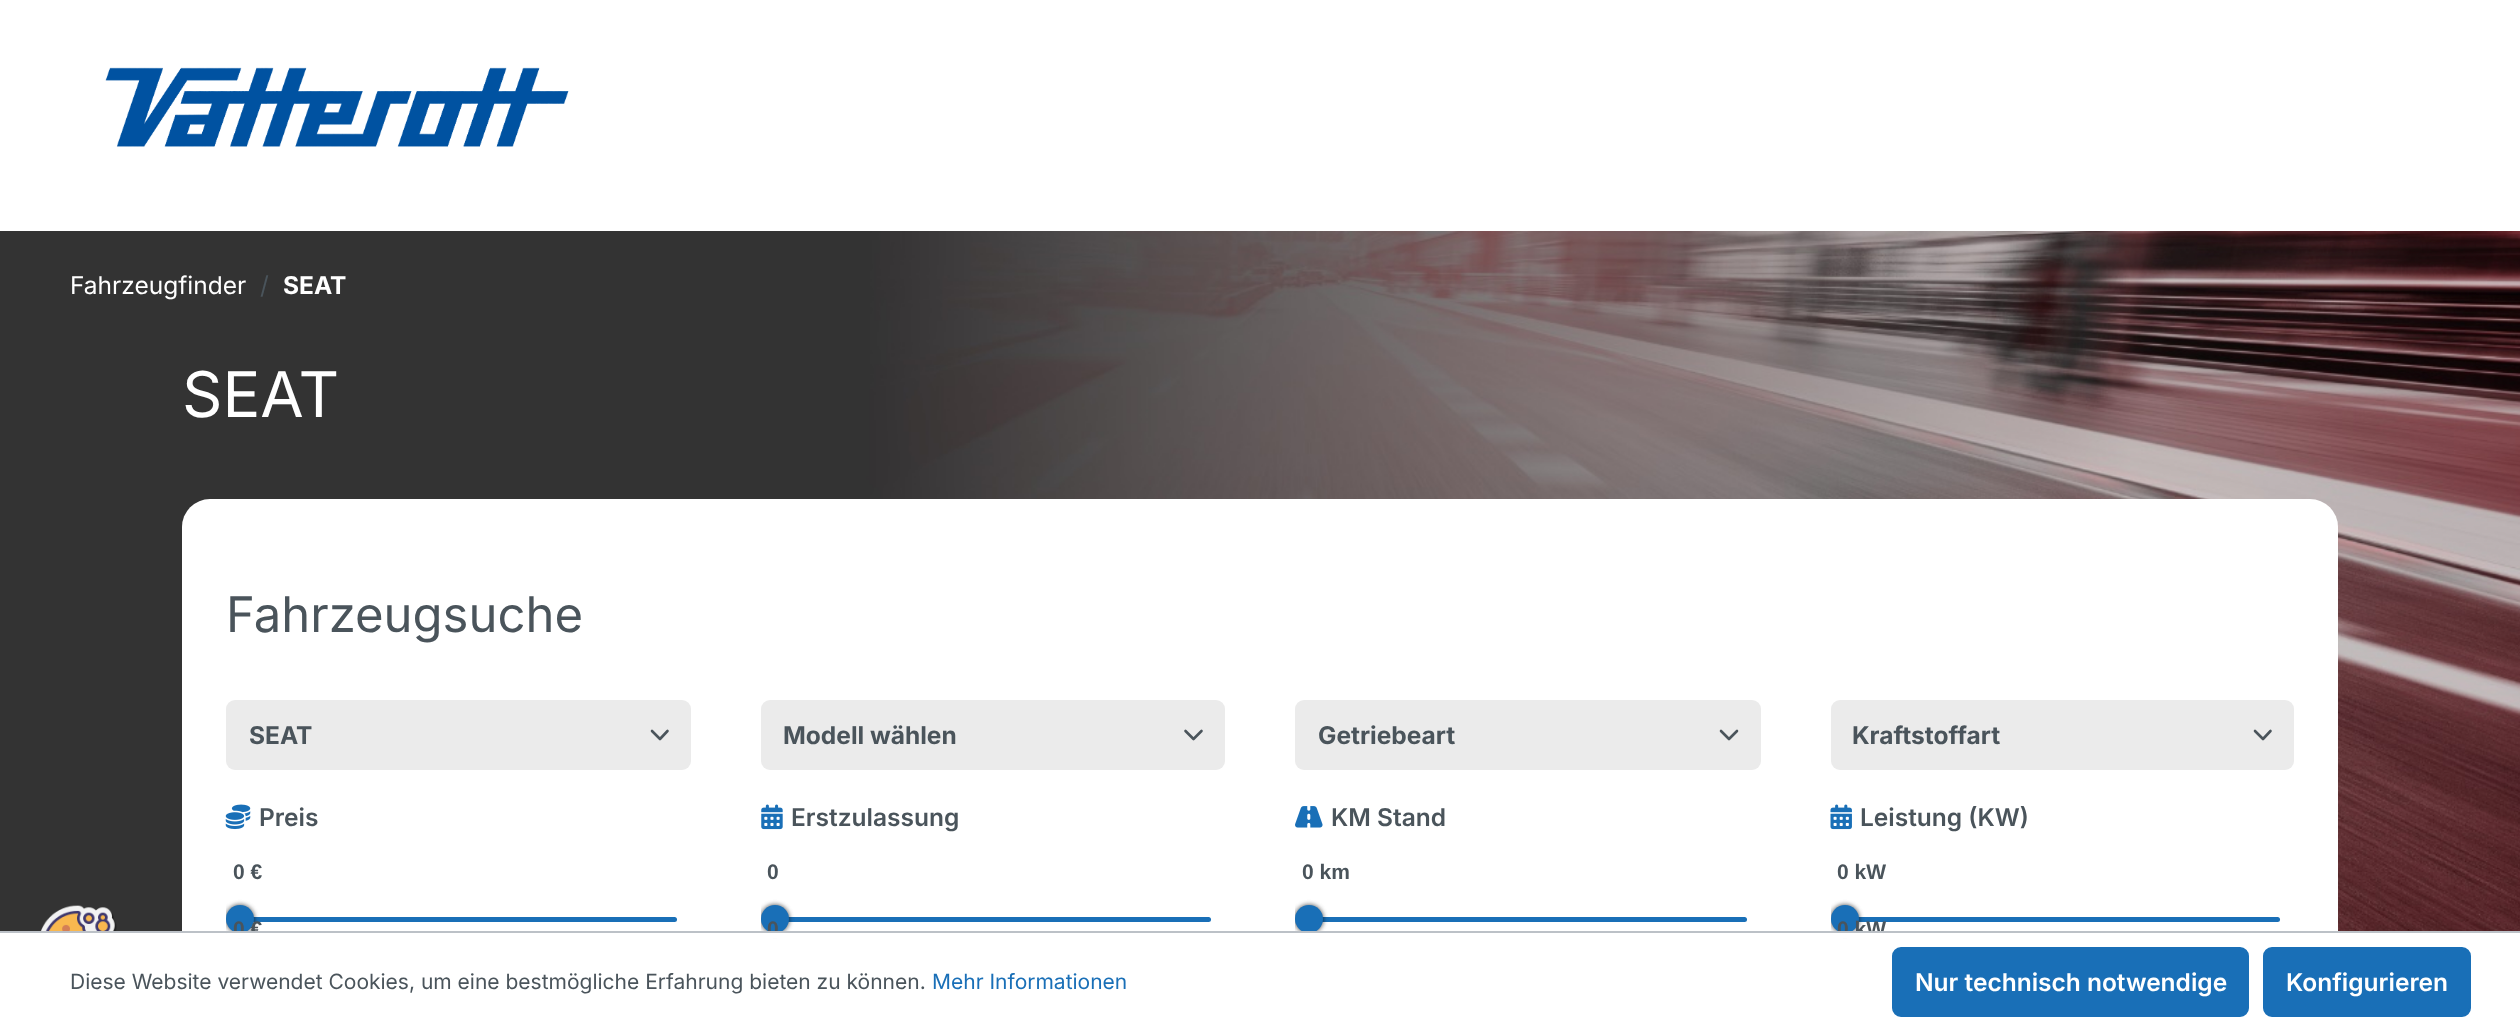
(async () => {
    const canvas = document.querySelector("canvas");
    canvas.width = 2520;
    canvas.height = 1030;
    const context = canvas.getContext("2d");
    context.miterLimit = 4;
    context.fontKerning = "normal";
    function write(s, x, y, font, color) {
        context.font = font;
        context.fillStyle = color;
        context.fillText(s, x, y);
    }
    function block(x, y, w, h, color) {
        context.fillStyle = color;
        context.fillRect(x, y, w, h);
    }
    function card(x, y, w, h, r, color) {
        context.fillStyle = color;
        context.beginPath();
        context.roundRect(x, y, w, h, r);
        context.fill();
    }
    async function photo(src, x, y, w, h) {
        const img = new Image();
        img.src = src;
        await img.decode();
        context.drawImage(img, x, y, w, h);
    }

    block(0, 0, 2520, 1030, "rgb(255, 255, 255)");
    await photo("media/1.png", 105, 67, 464, 80);
    await photo("media/2.png", 0, 231, 2520, 700);
    write("Fahrzeugfinder", 70, 294, "24.5px Inter", "rgb(255, 255, 255)");
    write("/", 260, 294, "24.5px Inter", "rgb(74, 84, 91)");
    write("SEAT", 283, 294, "bold 24.5px Inter", "rgb(255, 255, 255)");
    write("SEAT", 182, 417, "63px Inter", "rgb(255, 255, 255)");
    card(182, 499, 2156, 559, 28, "rgb(255, 255, 255)");
    write("Fahrzeugsuche", 226, 632, "49px Inter", "rgb(74, 84, 91)");
    card(226, 700, 465, 70, 9, "rgb(235, 235, 235)");
    context.beginPath();
    context.moveTo(652, 731);
    context.lineTo(660, 739);
    context.lineTo(667.5, 731);
    context.strokeStyle = "rgb(74, 84, 91)";
    context.lineWidth = 2.6;
    context.lineCap = "round";
    context.lineJoin = "round";
    context.stroke();
    write("SEAT", 249, 744, "bold 24.5px Inter", "rgb(74, 84, 91)");
    card(761, 700, 464, 70, 9, "rgb(235, 235, 235)");
    context.beginPath();
    context.moveTo(1185.5, 731);
    context.lineTo(1193.5, 739);
    context.lineTo(1201.5, 731);
    context.stroke();
    write("Modell wählen", 783, 744, "bold 24.5px Inter", "rgb(74, 84, 91)");
    card(1295, 700, 466, 70, 9, "rgb(235, 235, 235)");
    context.beginPath();
    context.moveTo(1721, 731);
    context.lineTo(1729, 739);
    context.lineTo(1737, 731);
    context.stroke();
    write("Getriebeart", 1318, 744, "bold 24.5px Inter", "rgb(74, 84, 91)");
    card(1831, 700, 463, 70, 9, "rgb(235, 235, 235)");
    context.beginPath();
    context.moveTo(2255, 731);
    context.lineTo(2263, 739);
    context.lineTo(2270.5, 731);
    context.stroke();
    write("Kraftstoffart", 1852, 744, "bold 24.5px Inter", "rgb(74, 84, 91)");
    await photo("media/3.png", 225, 804, 26, 26);
    write("Preis", 259, 826, "600 24.5px Inter", "rgb(74, 84, 91)");
    write("0 €", 233, 879, "bold 21px Liberation Sans", "rgb(74, 84, 91)");
    card(240, 917, 437, 5, 2.5, "rgb(25, 111, 183)");
    context.save();
    context.beginPath();
    context.rect(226, 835, 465, 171);
    context.clip();
    context.fillStyle = "rgba(0, 0, 0, 0.4)";
    context.filter = "blur(2.5px)";
    context.beginPath();
    context.roundRect(226, 905, 28, 28, 14);
    context.fill();
    context.filter = "none";
    context.filter = "blur(2.5px)";
    context.beginPath();
    context.roundRect(226, 905, 28, 28, 14);
    context.fill();
    context.filter = "none";
    context.restore();
    context.beginPath();
    context.arc(240, 919, 14, 0, Math.PI * 2);
    context.fill();
    write("0 €", 233, 936, "bold 21px Liberation Sans", "rgb(74, 84, 91)");
    await photo("media/4.png", 761, 804, 22, 26);
    write("Erstzulassung", 791, 826, "600 24.5px Inter", "rgb(74, 84, 91)");
    write("0", 767, 879, "bold 21px Liberation Sans", "rgb(74, 84, 91)");
    card(775, 917, 436, 5, 2.5, "rgb(25, 111, 183)");
    context.save();
    context.beginPath();
    context.rect(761, 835, 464, 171);
    context.clip();
    context.fillStyle = "rgba(0, 0, 0, 0.4)";
    context.filter = "blur(2.5px)";
    context.beginPath();
    context.roundRect(761, 905, 28, 28, 14);
    context.fill();
    context.filter = "none";
    context.filter = "blur(2.5px)";
    context.beginPath();
    context.roundRect(761, 905, 28, 28, 14);
    context.fill();
    context.filter = "none";
    context.restore();
    context.beginPath();
    context.arc(775, 919, 14, 0, Math.PI * 2);
    context.fill();
    write("0", 767, 936, "bold 21px Liberation Sans", "rgb(74, 84, 91)");
    await photo("media/5.png", 1295, 806, 28, 22);
    write("KM Stand", 1331, 826, "600 24.5px Inter", "rgb(74, 84, 91)");
    write("0 km", 1302, 879, "bold 21px Liberation Sans", "rgb(74, 84, 91)");
    card(1309, 917, 438, 5, 2.5, "rgb(25, 111, 183)");
    context.save();
    context.beginPath();
    context.rect(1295, 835, 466, 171);
    context.clip();
    context.fillStyle = "rgba(0, 0, 0, 0.4)";
    context.filter = "blur(2.5px)";
    context.beginPath();
    context.roundRect(1295, 905, 28, 28, 14);
    context.fill();
    context.filter = "none";
    context.filter = "blur(2.5px)";
    context.beginPath();
    context.roundRect(1295, 905, 28, 28, 14);
    context.fill();
    context.filter = "none";
    context.restore();
    context.beginPath();
    context.arc(1309, 919, 14, 0, Math.PI * 2);
    context.fill();
    await photo("media/6.png", 1830, 804, 22, 26);
    write("Leistung (KW)", 1860, 826, "600 24.5px Inter", "rgb(74, 84, 91)");
    write("0 kW", 1837, 879, "bold 21px Liberation Sans", "rgb(74, 84, 91)");
    card(1845, 917, 435, 5, 2.5, "rgb(25, 111, 183)");
    context.save();
    context.beginPath();
    context.rect(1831, 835, 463, 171);
    context.clip();
    context.fillStyle = "rgba(0, 0, 0, 0.4)";
    context.filter = "blur(2.5px)";
    context.beginPath();
    context.roundRect(1831, 905, 28, 28, 14);
    context.fill();
    context.filter = "none";
    context.filter = "blur(2.5px)";
    context.beginPath();
    context.roundRect(1831, 905, 28, 28, 14);
    context.fill();
    context.filter = "none";
    context.restore();
    context.beginPath();
    context.arc(1845, 919, 14, 0, Math.PI * 2);
    context.fill();
    write("0 kW", 1837, 936, "bold 21px Liberation Sans", "rgb(74, 84, 91)");
    await photo("media/7.png", 41, 905, 76, 26);
    block(227, 933, 1656, 5, "rgb(255, 255, 255)");
    block(0, 931, 2520, 2, "rgb(188, 193, 199)");
    write("Diese Website verwendet Cookies, um eine bestmögliche Erfahrung bieten zu können.", 70, 989, "21px Inter", "rgb(74, 84, 91)");
    write("Mehr Informationen", 932, 989, "21px Inter", "rgb(25, 111, 183)");
    context.beginPath();
    context.roundRect(1893, 948, 355, 68, 8);
    context.fill();
    context.strokeStyle = "rgb(25, 111, 183)";
    context.lineWidth = 2;
    context.lineJoin = "miter";
    context.stroke();
    write("Nur technisch notwendige", 1915, 991, "600 24.5px Inter", "rgb(255, 255, 255)");
    context.fillStyle = "rgb(25, 111, 183)";
    context.beginPath();
    context.roundRect(2264, 948, 206, 68, 8);
    context.fill();
    context.stroke();
    write("Konfigurieren", 2286, 991, "600 24.5px Inter", "rgb(255, 255, 255)");
})();
